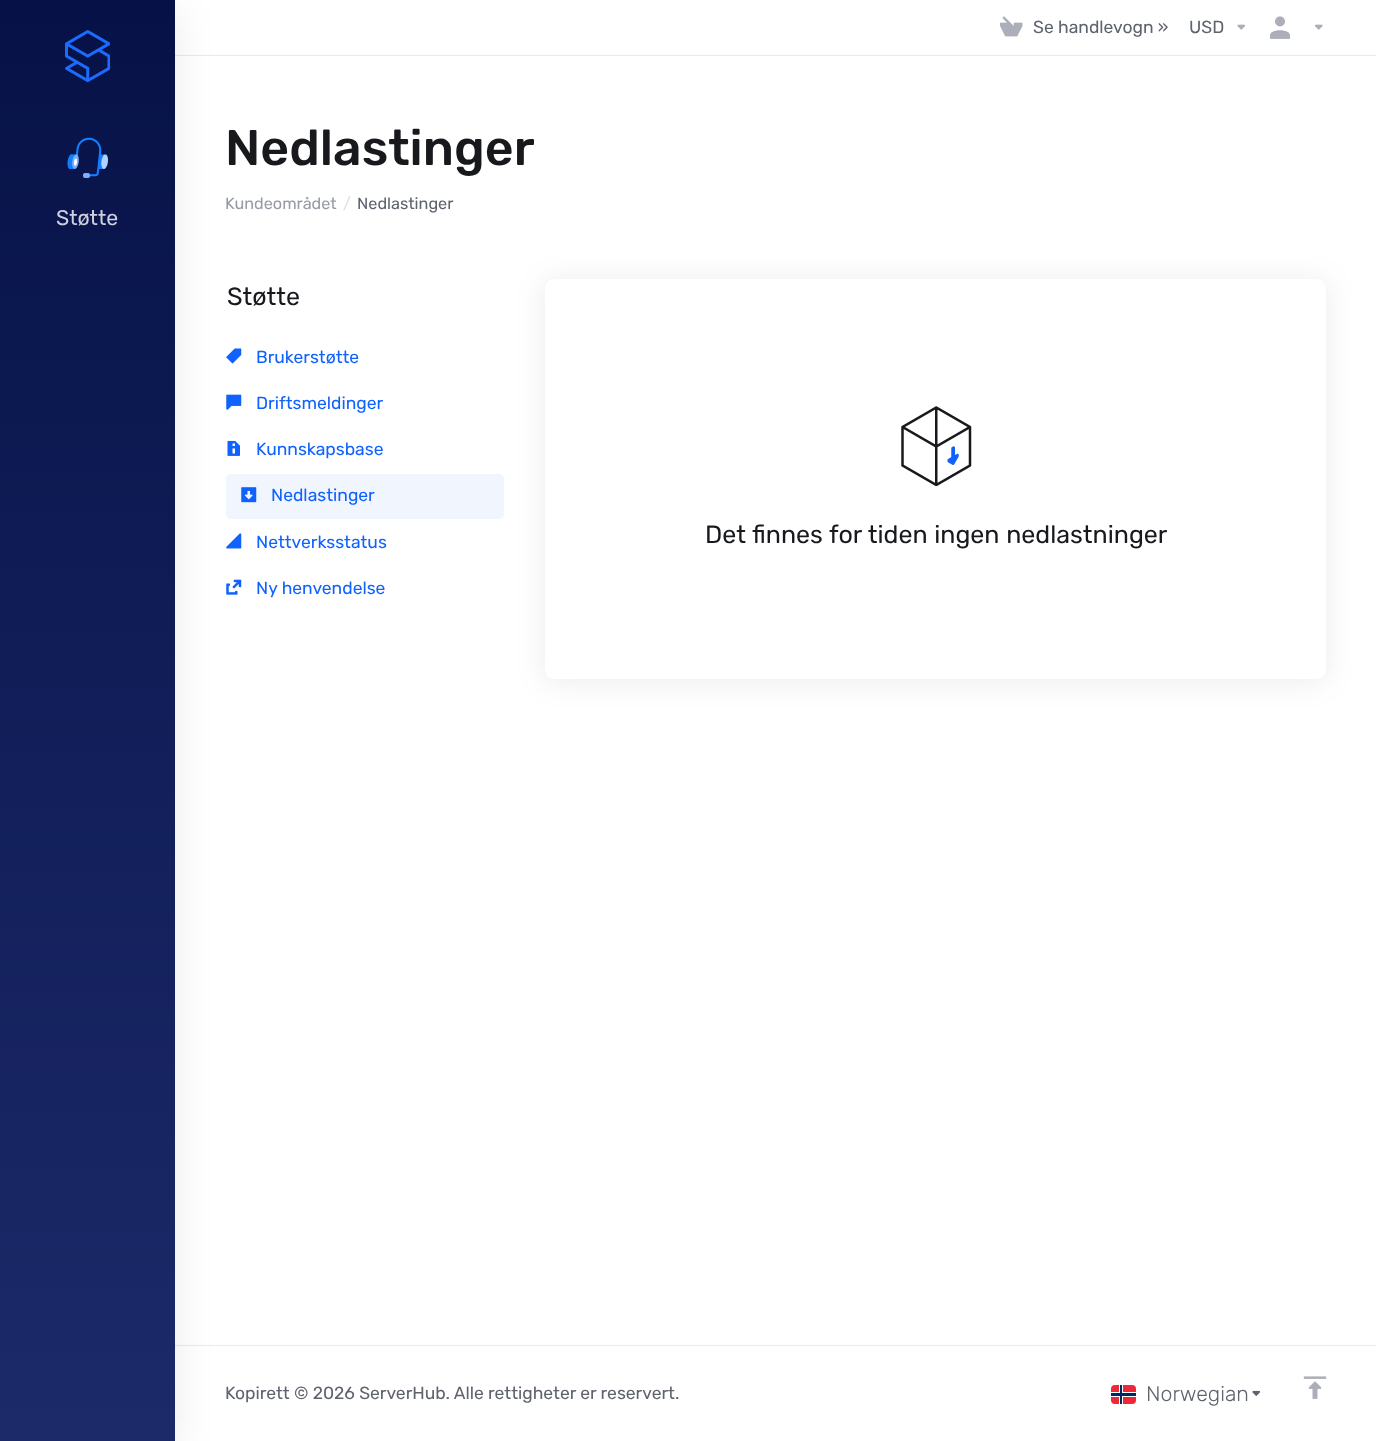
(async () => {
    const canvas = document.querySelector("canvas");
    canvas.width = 1376;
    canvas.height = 1441;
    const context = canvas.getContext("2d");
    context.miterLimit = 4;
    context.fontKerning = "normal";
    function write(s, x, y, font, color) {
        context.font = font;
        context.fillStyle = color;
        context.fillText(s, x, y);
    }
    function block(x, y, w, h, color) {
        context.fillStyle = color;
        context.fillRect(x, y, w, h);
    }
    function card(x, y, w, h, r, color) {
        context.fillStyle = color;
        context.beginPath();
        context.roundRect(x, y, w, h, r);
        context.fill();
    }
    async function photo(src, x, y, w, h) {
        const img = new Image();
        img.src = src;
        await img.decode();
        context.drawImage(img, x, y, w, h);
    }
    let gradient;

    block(0, 0, 1376, 1441, "rgb(255, 255, 255)");
    block(175, 55, 1201, 1, "rgb(233, 234, 236)");
    await photo("media/7.png", 226, 348, 16, 16);
    await photo("media/8.png", 226, 394, 16, 16);
    await photo("media/9.png", 227, 440, 13, 16);
    context.fillStyle = "rgba(0, 0, 0, 0.08)";
    context.filter = "blur(15px)";
    context.beginPath();
    context.roundRect(545, 281, 781, 400, 8);
    context.fill();
    context.filter = "none";
    card(226, 474, 278, 45, 5, "rgb(241, 245, 254)");
    await photo("media/11.png", 226, 533, 16, 16);
    await photo("media/12.png", 226, 579, 16, 16);
    block(175, 1345, 1201, 1, "rgb(233, 234, 236)");
    context.fillStyle = "rgba(0, 0, 0, 0.08)";
    context.filter = "blur(20px)";
    context.beginPath();
    context.rect(0, 10, 175, 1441);
    context.fill();
    context.filter = "none";
    gradient = context.createLinearGradient(88, 1441, 88, 0);
    gradient.addColorStop(0, "rgb(28, 42, 106)");
    gradient.addColorStop(1, "rgb(6, 18, 71)");
    context.fillStyle = gradient;
    context.fillRect(0, 0, 175, 1441);
    await photo("media/1.png", 65, 30, 45, 53);
    await photo("media/2.png", 67, 137, 41, 41);
    write("Støtte", 56, 225, "21.25px Rubik", "rgb(206, 208, 219)");
    await photo("media/3.png", 1000, 16, 23, 21);
    write("Se handlevogn »", 1033, 33, "17.5px Rubik", "rgb(94, 99, 110)");
    write("USD", 1189, 33, "17.5px Rubik", "rgb(94, 99, 110)");
    await photo("media/4.png", 1237, 24, 8, 6);
    await photo("media/5.png", 1270, 16, 20, 23);
    await photo("media/6.png", 1315, 24, 8, 6);
    write("Nedlastinger", 225, 165, "500 50px Rubik", "rgb(23, 25, 28)");
    write("Kundeområdet", 225, 209, "16.25px Rubik", "rgb(151, 155, 164)");
    write("/", 343, 209, "16.25px Rubik", "rgb(222, 224, 227)");
    write("Nedlastinger", 357, 209, "16.25px Rubik", "rgb(94, 99, 110)");
    write("Støtte", 227, 305, "25px Rubik", "rgb(23, 25, 28)");
    write("Brukerstøtte", 256, 363, "17.5px Rubik", "rgb(16, 98, 254)");
    write("Driftsmeldinger", 256, 409, "17.5px Rubik", "rgb(16, 98, 254)");
    write("Kunnskapsbase", 256, 455, "17.5px Rubik", "rgb(16, 98, 254)");
    await photo("media/10.png", 241, 487, 16, 16);
    write("Nedlastinger", 271, 501, "17.5px Rubik", "rgb(16, 98, 254)");
    write("Nettverksstatus", 256, 548, "17.5px Rubik", "rgb(16, 98, 254)");
    write("Ny henvendelse", 256, 594, "17.5px Rubik", "rgb(16, 98, 254)");
    context.fillStyle = "rgba(0, 0, 0, 0.1)";
    context.filter = "blur(0.5px)";
    context.beginPath();
    context.roundRect(545, 279, 781, 400, 8);
    context.fill();
    context.filter = "none";
    card(545, 279, 781, 400, 8, "rgb(255, 255, 255)");
    await photo("media/13.png", 901, 406, 71, 80);
    context.wordSpacing = "0.5px";
    write("Det finnes for tiden ingen nedlastninger", 705, 543, "25px Rubik", "rgb(23, 25, 28)");
    context.wordSpacing = "0px";
    write("Kopirett © 2026 ServerHub. Alle rettigheter er reservert.", 225, 1399, "17.5px Rubik", "rgb(94, 99, 110)");
    card(1111, 1385, 25, 19, 4, "rgb(237, 41, 57)");
    block(1119, 1385, 4, 19, "rgb(255, 255, 255)");
    block(1111, 1392, 25, 5, "rgb(255, 255, 255)");
    block(1120, 1385, 2, 19, "rgb(0, 38, 100)");
    block(1111, 1393, 25, 3, "rgb(0, 38, 100)");
    write("Norwegian", 1146, 1401, "300 21.25px Rubik", "rgb(94, 99, 110)");
    await photo("media/14.png", 1252, 1390, 8, 6);
    await photo("media/15.png", 1303, 1376, 24, 23);
})();
